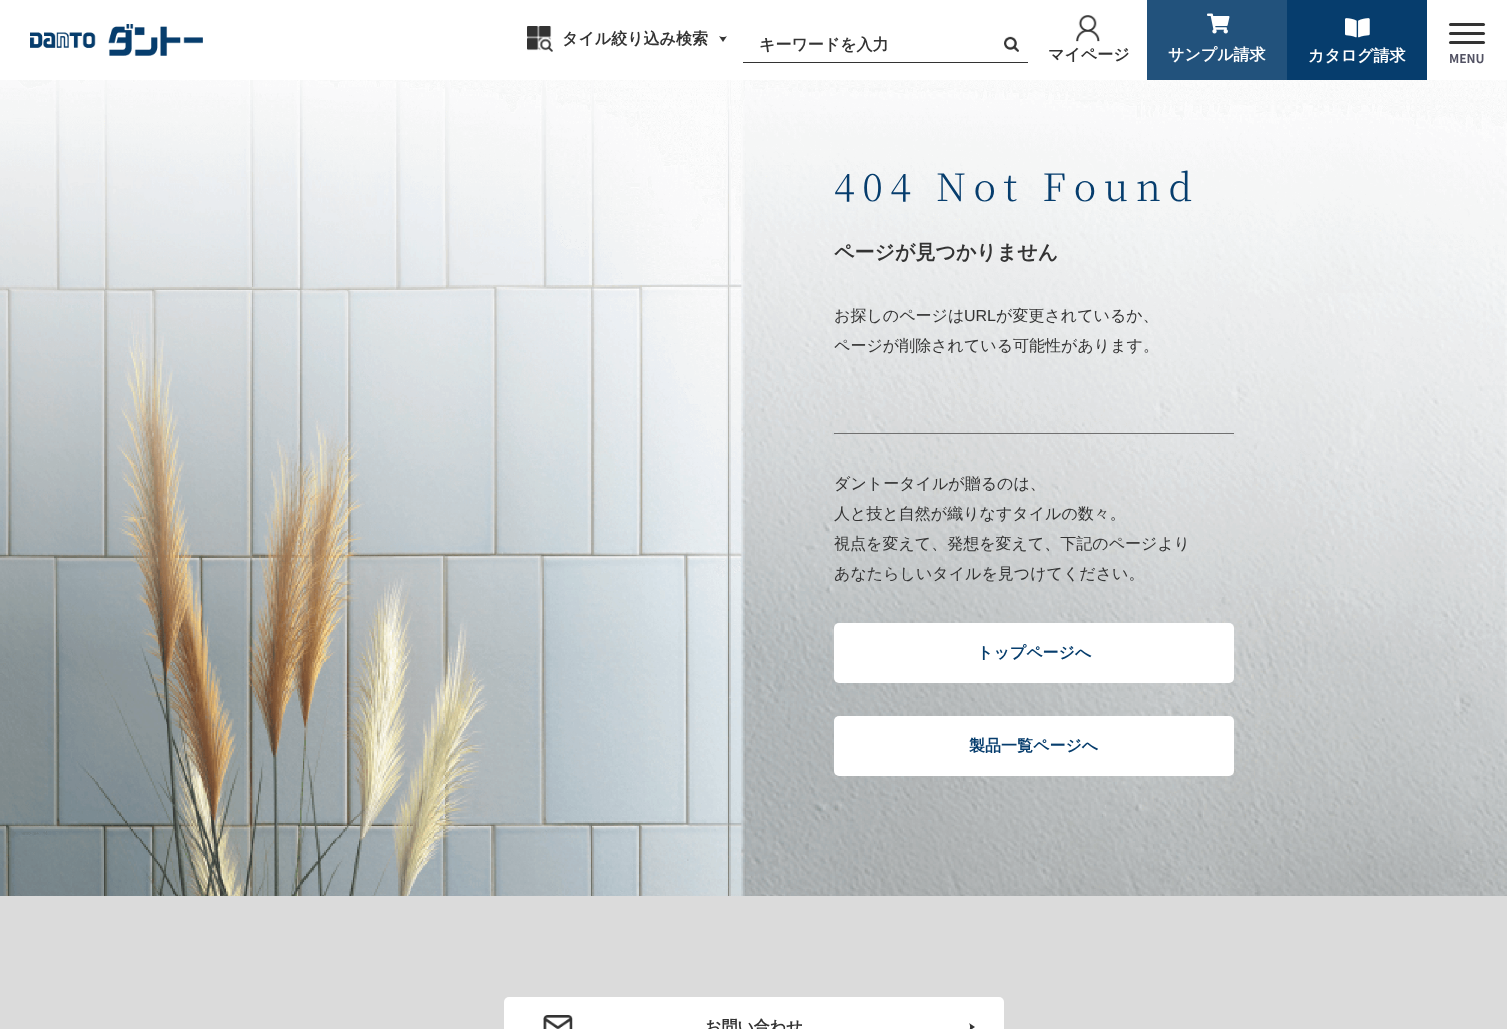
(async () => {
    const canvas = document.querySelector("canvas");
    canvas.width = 1507;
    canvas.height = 1029;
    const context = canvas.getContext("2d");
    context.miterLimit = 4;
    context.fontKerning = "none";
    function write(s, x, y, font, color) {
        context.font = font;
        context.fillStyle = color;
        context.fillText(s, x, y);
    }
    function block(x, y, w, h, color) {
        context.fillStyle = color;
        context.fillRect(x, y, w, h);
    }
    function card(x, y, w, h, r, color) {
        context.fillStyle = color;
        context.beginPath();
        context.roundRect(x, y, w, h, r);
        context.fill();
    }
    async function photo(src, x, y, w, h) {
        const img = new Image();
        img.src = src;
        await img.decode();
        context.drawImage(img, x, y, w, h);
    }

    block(0, 0, 1507, 1029, "rgb(255, 255, 255)");
    await photo("media/1.png", 30, 24, 173, 32);
    await photo("media/2.png", 527, 26, 26, 26);
    write("タイル絞り込み検索", 562, 44, "bold 16px WenQuanYi Zen Hei", "rgb(51, 51, 51)");
    await photo("media/3.png", 719, 36, 8, 6);
    block(743, 62, 285, 1, "rgb(51, 51, 51)");
    write("キーワードを入力", 759, 50, "bold 16px WenQuanYi Zen Hei", "rgb(51, 51, 51)");
    await photo("media/4.png", 1004, 36, 15, 16);
    await photo("media/5.png", 1076, 15, 24, 27);
    write("マイページ", 1048, 60, "bold 16px WenQuanYi Zen Hei", "rgb(51, 51, 51)");
    block(1147, 0, 140, 80, "rgb(34, 82, 124)");
    await photo("media/6.png", 1207, 13, 23, 21);
    write("サンプル請求", 1168, 60, "bold 16px WenQuanYi Zen Hei", "rgb(255, 255, 255)");
    block(1287, 0, 140, 80, "rgb(6, 61, 109)");
    await photo("media/7.png", 1345, 18, 25, 20);
    write("カタログ請求", 1308, 61, "bold 16px WenQuanYi Zen Hei", "rgb(255, 255, 255)");
    card(1449, 23, 36, 3, 1.5, "rgb(51, 51, 51)");
    card(1449, 32, 36, 3, 1.5, "rgb(51, 51, 51)");
    card(1449, 41, 36, 3, 1.5, "rgb(51, 51, 51)");
    write("MENU", 1449, 63, "bold 12px Noto Sans JP", "rgb(82, 82, 99)");
    await photo("media/8.png", 0, 80, 1507, 816);
    context.letterSpacing = "7.6px";
    write("404 Not Found", 834, 201, "300 38px Noto Serif JP", "rgb(6, 61, 109)");
    context.letterSpacing = "0px";
    write("ページが見つかりません", 834, 259, "bold 20px WenQuanYi Zen Hei", "rgb(51, 51, 51)");
    write("お探しのページは", 834, 321, "500 16px WenQuanYi Zen Hei", "rgb(51, 51, 51)");
    write("URL", 964, 321, "16px Liberation Sans", "rgb(51, 51, 51)");
    write("が変更されているか、", 996, 321, "500 16px WenQuanYi Zen Hei", "rgb(51, 51, 51)");
    write("ページが削除されている可能性があります。", 834, 351, "500 16px WenQuanYi Zen Hei", "rgb(51, 51, 51)");
    block(834, 433, 400, 1, "rgb(112, 112, 112)");
    write("ダントータイルが贈るのは、", 834, 489, "500 16px WenQuanYi Zen Hei", "rgb(51, 51, 51)");
    write("人と技と自然が織りなすタイルの数々。", 834, 519, "500 16px WenQuanYi Zen Hei", "rgb(51, 51, 51)");
    write("視点を変えて、発想を変えて、下記のページより", 834, 549, "500 16px WenQuanYi Zen Hei", "rgb(51, 51, 51)");
    write("あなたらしいタイルを見つけてください。", 834, 579, "500 16px WenQuanYi Zen Hei", "rgb(51, 51, 51)");
    card(834, 623, 400, 60, 5, "rgb(255, 255, 255)");
    write("トップページへ", 977, 658, "bold 16px WenQuanYi Zen Hei", "rgb(6, 61, 109)");
    card(834, 716, 400, 60, 5, "rgb(255, 255, 255)");
    write("製品一覧ページへ", 969, 751, "bold 16px WenQuanYi Zen Hei", "rgb(6, 61, 109)");
    block(0, 896, 1507, 133, "rgb(219, 219, 219)");
    card(504, 997, 500, 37, 5, "rgb(255, 255, 255)");
    await photo("media/9.png", 543, 1015, 30, 14);
    write("お問い合わせ", 705, 1032, "bold 16px WenQuanYi Zen Hei", "rgb(51, 51, 51)");
    await photo("media/10.png", 969, 1023, 6, 6);
})();
